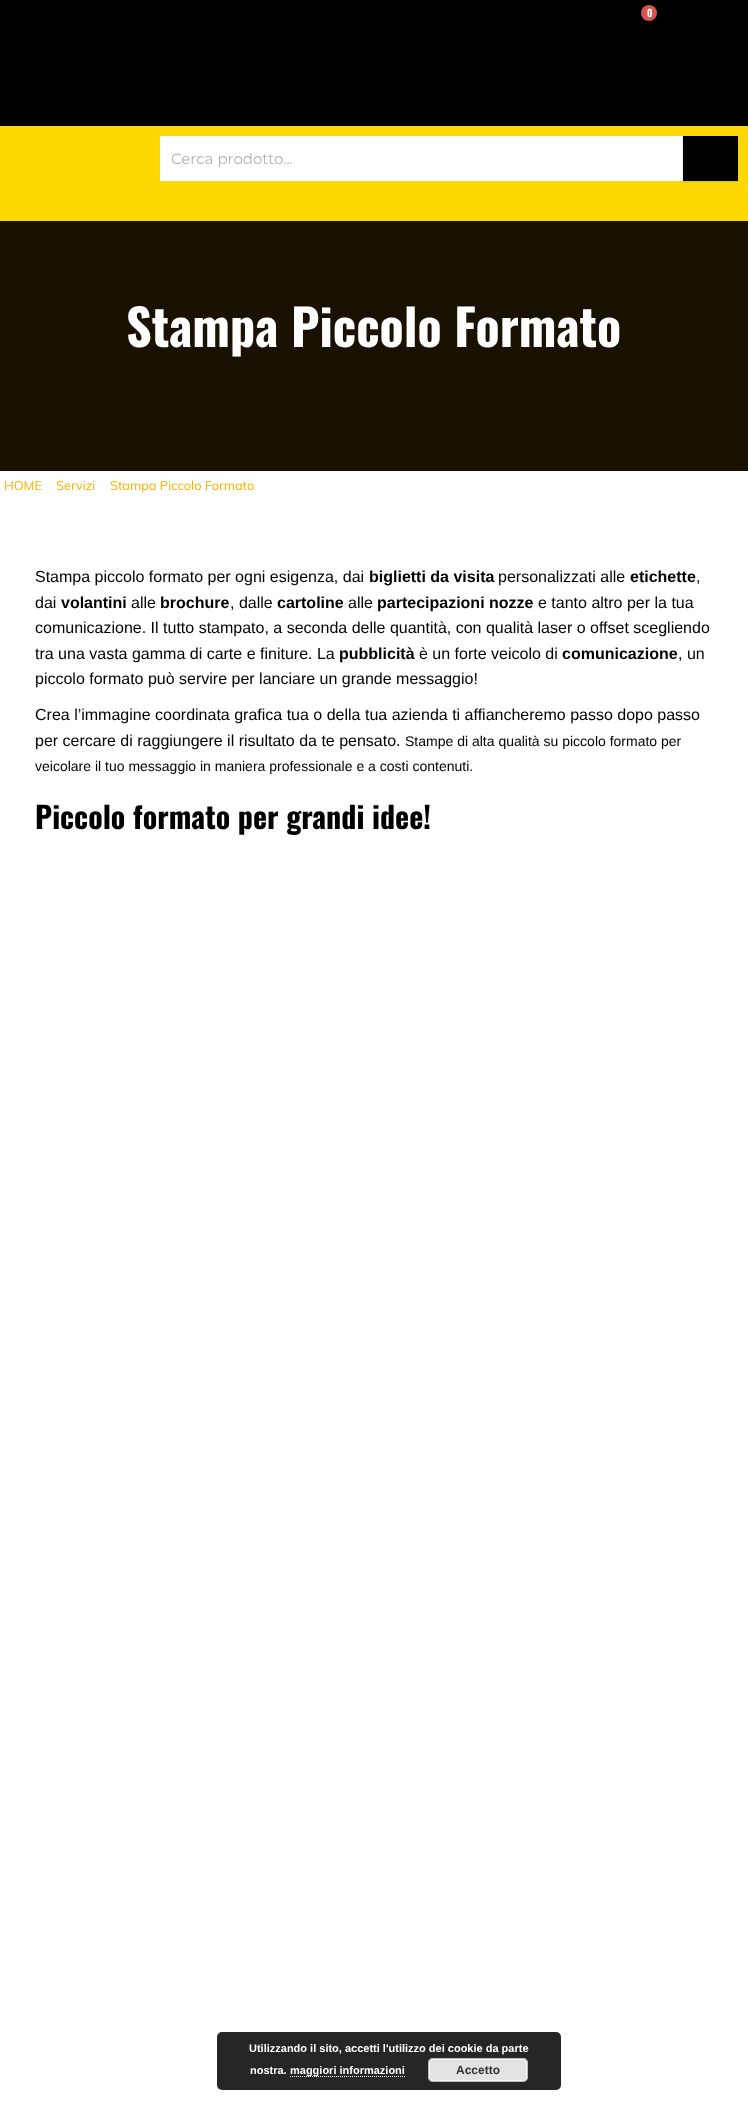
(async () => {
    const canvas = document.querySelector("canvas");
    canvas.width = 748;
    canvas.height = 2120;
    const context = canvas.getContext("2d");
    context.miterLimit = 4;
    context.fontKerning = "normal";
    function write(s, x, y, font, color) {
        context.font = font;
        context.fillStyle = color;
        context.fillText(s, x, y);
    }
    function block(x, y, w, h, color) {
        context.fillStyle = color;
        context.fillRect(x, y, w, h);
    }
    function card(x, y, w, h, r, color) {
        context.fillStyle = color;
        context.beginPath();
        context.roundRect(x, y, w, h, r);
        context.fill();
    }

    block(0, 0, 748, 2120, "rgb(255, 255, 255)");
    block(0, 0, 748, 126, "rgb(0, 0, 0)");
    context.fillStyle = "rgb(217, 83, 79)";
    context.beginPath();
    context.arc(649, 13, 8, 0, Math.PI * 2);
    context.fill();
    write("0", 647, 17, "600 10px Oswald", "rgb(255, 255, 255)");
    block(0, 126, 748, 95, "rgb(255, 216, 0)");
    block(160, 136, 523, 45, "rgb(255, 255, 255)");
    write("Cerca prodotto...", 171, 164, "15px Montserrat", "rgb(177, 177, 177)");
    context.fillStyle = "rgba(0, 0, 0, 0.15)";
    context.filter = "blur(1px)";
    context.beginPath();
    context.rect(683, 137, 55, 45);
    context.fill();
    context.filter = "none";
    block(683, 136, 55, 45, "rgb(0, 0, 0)");
    block(0, 221, 748, 250, "rgb(25, 17, 1)");
    write("Stampa Piccolo Formato", 126, 347, "bold 50px Oswald", "rgb(255, 255, 255)");
    write("HOME", 4, 490, "12.75px Muli", "rgb(250, 176, 0)");
    write("Servizi", 56, 490, "12.75px Muli", "rgb(250, 176, 0)");
    write("Stampa Piccolo Formato", 110, 490, "12.75px Muli", "rgb(250, 176, 0)");
    write("Stampa piccolo formato per ogni esigenza, dai", 35, 582, "16px Liberation Sans", "rgb(0, 0, 0)");
    write("biglietti da visita", 369, 582, "bold 16px Liberation Sans", "rgb(0, 0, 0)");
    write("personalizzati alle", 498, 582, "16px Liberation Sans", "rgb(0, 0, 0)");
    write("etichette", 630, 582, "bold 16px Liberation Sans", "rgb(0, 0, 0)");
    write(",", 696, 582, "16px Liberation Sans", "rgb(0, 0, 0)");
    write("dai", 35, 608, "16px Liberation Sans", "rgb(0, 0, 0)");
    write("volantini", 61, 608, "bold 16px Liberation Sans", "rgb(0, 0, 0)");
    write("alle", 131, 608, "16px Liberation Sans", "rgb(0, 0, 0)");
    write("brochure", 160, 608, "bold 16px Liberation Sans", "rgb(0, 0, 0)");
    write(", dalle", 230, 608, "16px Liberation Sans", "rgb(0, 0, 0)");
    write("cartoline", 277, 608, "bold 16px Liberation Sans", "rgb(0, 0, 0)");
    write("alle", 348, 608, "16px Liberation Sans", "rgb(0, 0, 0)");
    write("partecipazioni nozze", 377, 608, "bold 16px Liberation Sans", "rgb(0, 0, 0)");
    write("e tanto altro per la tua", 538, 608, "16px Liberation Sans", "rgb(0, 0, 0)");
    write("comunicazione. Il tutto stampato, a seconda delle quantità, con qualità laser o offset scegliendo", 35, 633, "16px Liberation Sans", "rgb(0, 0, 0)");
    write("tra una vasta gamma di carte e finiture. La", 35, 659, "16px Liberation Sans", "rgb(0, 0, 0)");
    write("pubblicità", 339, 659, "bold 16px Liberation Sans", "rgb(0, 0, 0)");
    write("è un forte veicolo di", 419, 659, "16px Liberation Sans", "rgb(0, 0, 0)");
    write("comunicazione", 562, 659, "bold 16px Liberation Sans", "rgb(0, 0, 0)");
    write(", un", 678, 659, "16px Liberation Sans", "rgb(0, 0, 0)");
    write("piccolo formato può servire per lanciare un grande messaggio!", 35, 684, "16px Liberation Sans", "rgb(0, 0, 0)");
    write("Crea l’immagine coordinata grafica tua o della tua azienda ti affiancheremo passo dopo passo", 35, 720, "16px Liberation Sans", "rgb(0, 0, 0)");
    write("per cercare di raggiungere il risultato da te pensato.", 35, 746, "16px Liberation Sans", "rgb(0, 0, 0)");
    write("Stampe di alta qualità su piccolo formato per", 405, 746, "14px Liberation Sans", "rgb(0, 0, 0)");
    write("veicolare il tuo messaggio in maniera professionale e a costi contenuti.", 35, 771, "14px Liberation Sans", "rgb(0, 0, 0)");
    write("Piccolo formato per grandi idee!", 35, 829, "bold 30px Oswald", "rgb(0, 0, 0)");
    card(217, 2032, 344, 58, 5, "rgb(38, 38, 38)");
    write("Utilizzando il sito, accetti l'utilizzo dei cookie da parte", 249, 2052, "bold 11px Liberation Sans", "rgb(255, 255, 255)");
    write("nostra.", 250, 2074, "bold 11px Liberation Sans", "rgb(255, 255, 255)");
    context.beginPath();
    context.moveTo(290, 2076.5);
    context.lineTo(405, 2076.5);
    context.strokeStyle = "rgb(255, 255, 255)";
    context.setLineDash([1, 1]);
    context.stroke();
    write("maggiori informazioni", 290, 2074, "bold 11px Liberation Sans", "rgb(255, 255, 255)");
    card(428, 2058, 100, 24, 5, "rgb(227, 227, 227)");
    context.beginPath();
    context.roundRect(429.5, 2059.5, 97, 21, 3.5);
    context.strokeStyle = "rgb(246, 246, 246)";
    context.setLineDash([]);
    context.stroke();
    context.beginPath();
    context.roundRect(428.5, 2058.5, 99, 23, 4.5);
    context.strokeStyle = "rgb(187, 187, 187)";
    context.stroke();
    write("Accetto", 456, 2074, "bold 12px Liberation Sans", "rgb(51, 51, 51)");
})();
